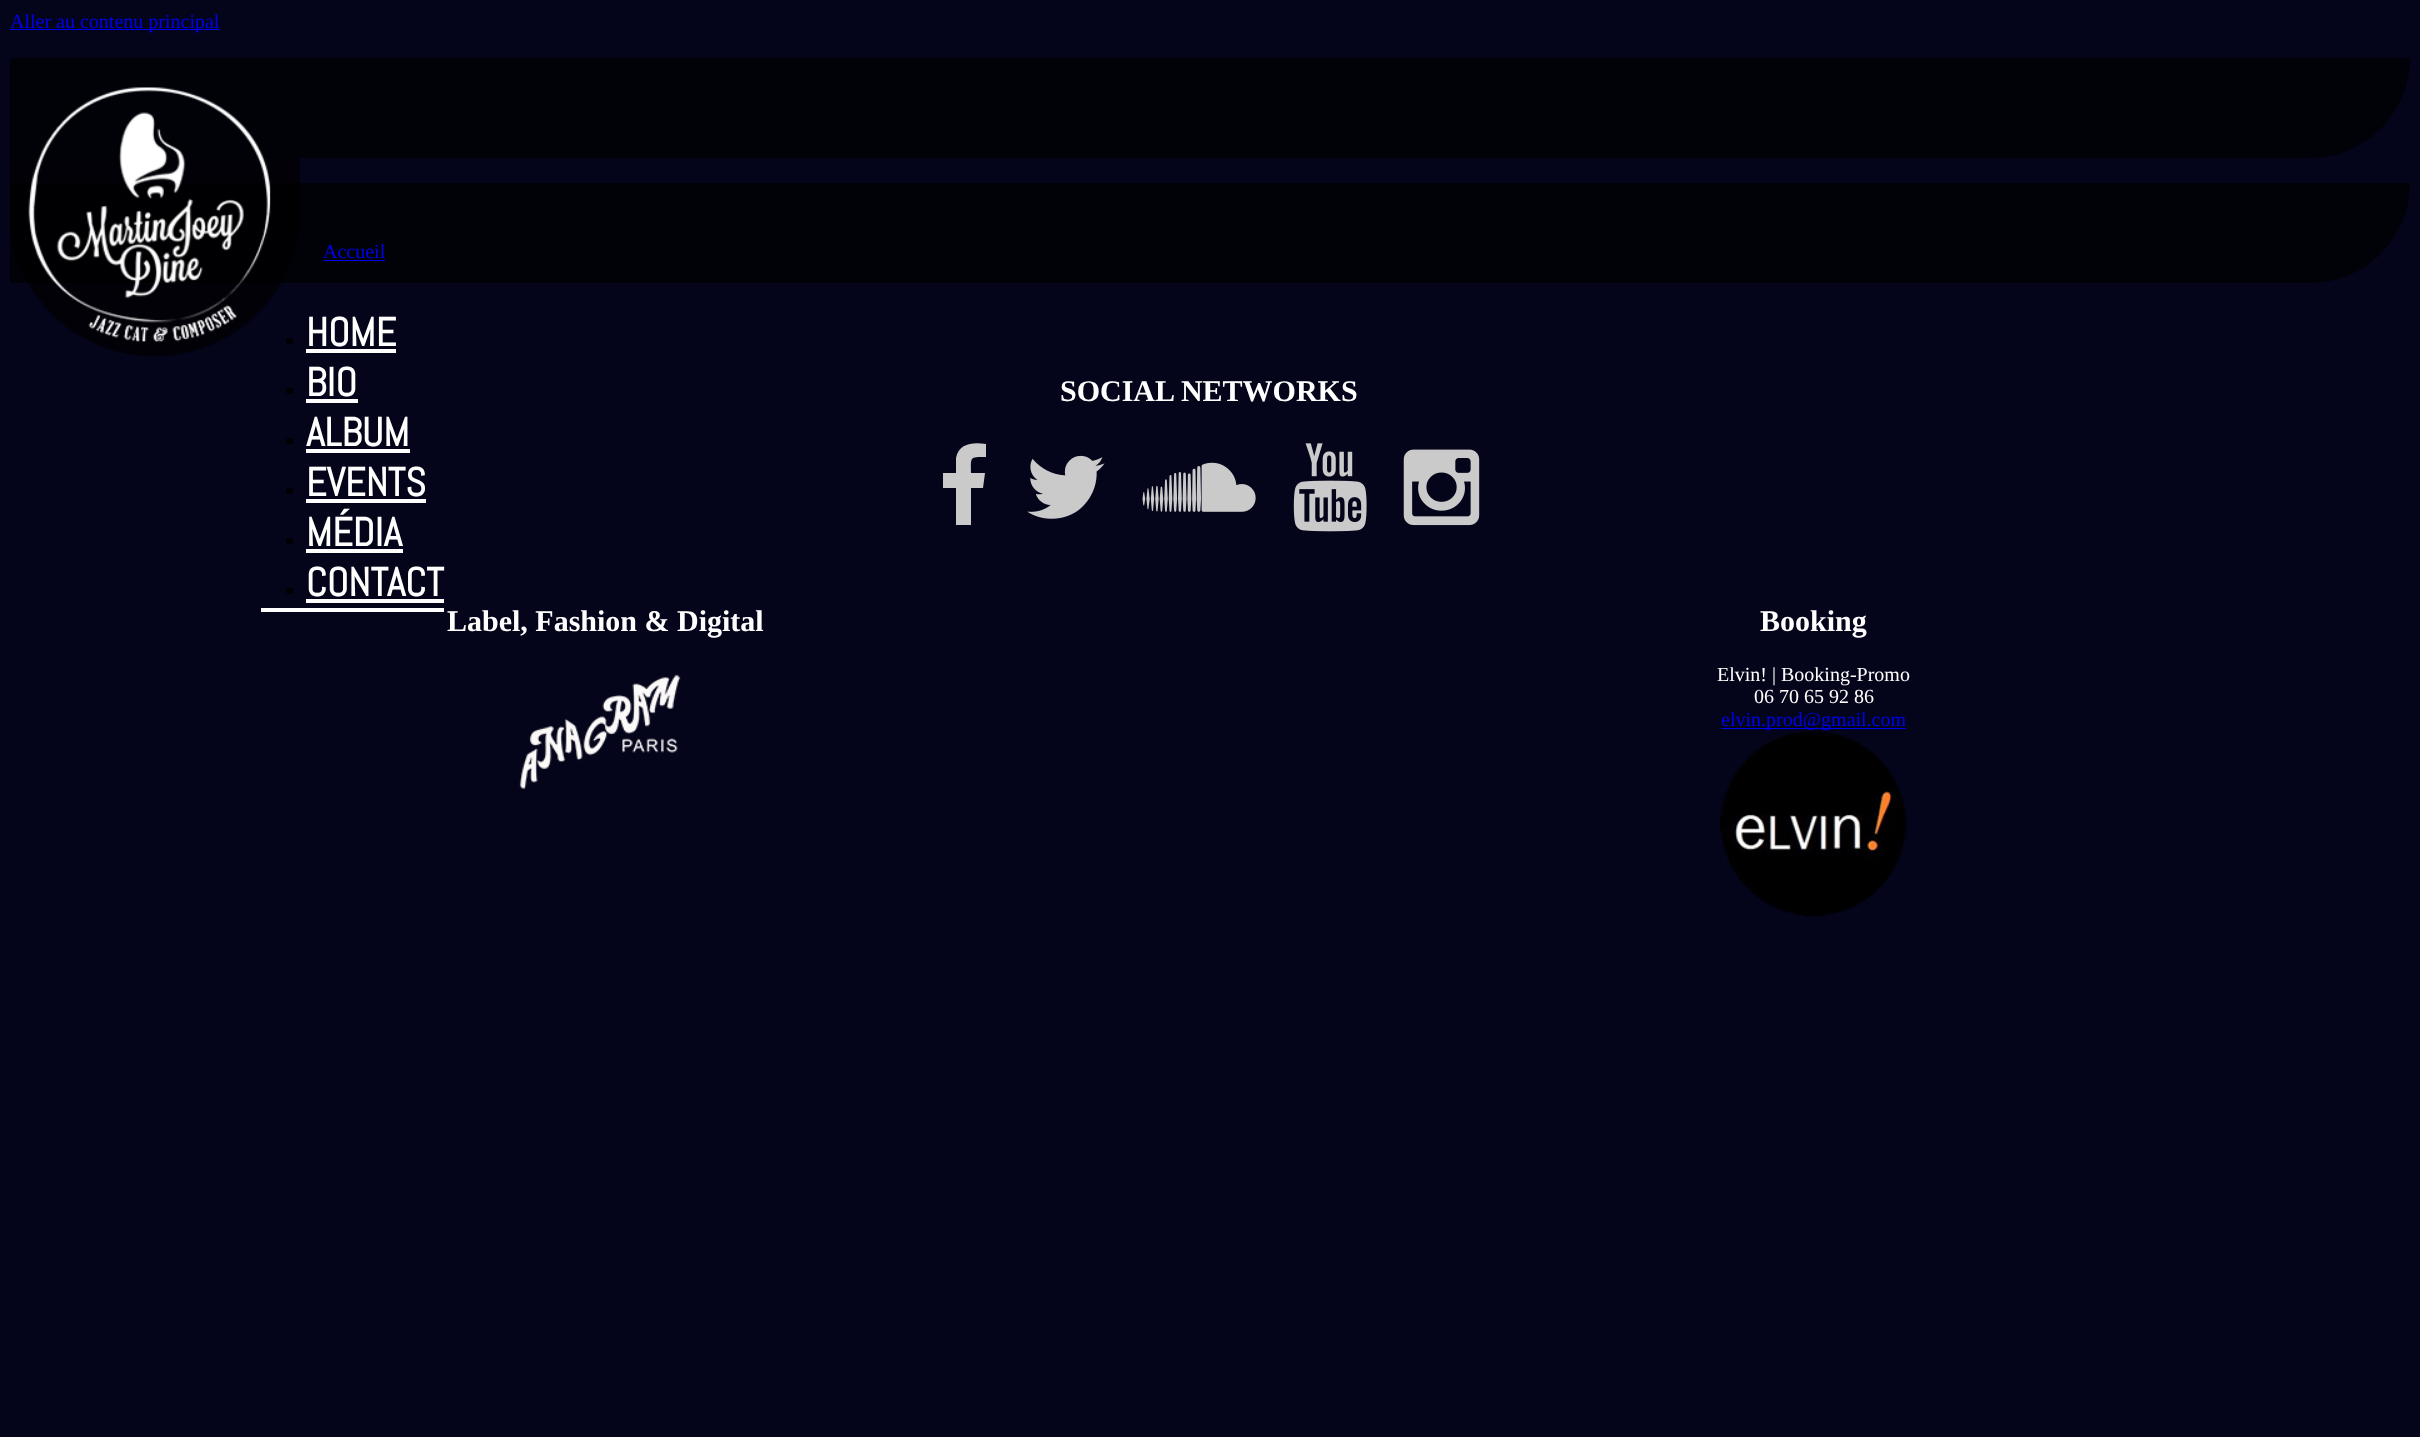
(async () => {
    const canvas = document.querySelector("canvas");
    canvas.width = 2420;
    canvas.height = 1437;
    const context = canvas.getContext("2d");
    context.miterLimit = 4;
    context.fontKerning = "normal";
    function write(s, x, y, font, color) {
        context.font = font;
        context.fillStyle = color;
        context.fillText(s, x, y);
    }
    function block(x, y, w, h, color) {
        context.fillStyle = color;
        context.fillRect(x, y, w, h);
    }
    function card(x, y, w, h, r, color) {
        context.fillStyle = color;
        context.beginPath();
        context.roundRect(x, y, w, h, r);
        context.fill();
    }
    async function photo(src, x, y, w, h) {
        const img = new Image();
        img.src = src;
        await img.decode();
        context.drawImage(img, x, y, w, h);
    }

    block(0, 0, 2420, 1437, "rgb(4, 5, 26)");
    block(10, 29, 210, 1, "rgb(0, 0, 238)");
    write("Aller au contenu principal", 10, 28, "20px Liberation Serif", "rgb(0, 0, 238)");
    context.fillStyle = "rgb(1, 2, 8)";
    context.beginPath();
    context.roundRect(10, 183, 2400, 100, [0, 0, 100, 0]);
    context.fill();
    write("Accueil", 323, 258, "20px Liberation Serif", "rgb(0, 0, 238)");
    block(323, 260, 62, 1, "rgb(0, 0, 238)");
    write("SOCIAL NETWORKS", 1060, 401, "bold 30px Liberation Serif", "rgb(255, 255, 255)");
    context.fillStyle = "rgb(202, 202, 202)";
    context.beginPath();
    context.moveTo(986, 444);
    context.lineTo(986, 457);
    context.bezierCurveTo(969, 457, 971, 457, 971, 473);
    context.lineTo(985, 473);
    context.lineTo(983, 488);
    context.lineTo(971, 488);
    context.lineTo(971, 525);
    context.lineTo(956, 525);
    context.lineTo(956, 488);
    context.lineTo(943, 488);
    context.lineTo(943, 473);
    context.lineTo(956, 473);
    context.lineTo(956, 458);
    context.bezierCurveTo(959, 443, 973, 442, 986, 444);
    context.closePath();
    context.fill();
    await photo("media/1.png", 1027, 455, 78, 64);
    await photo("media/2.png", 1142, 462, 114, 50);
    await photo("media/3.png", 1293, 443, 74, 89);
    await photo("media/4.png", 1403, 449, 77, 77);
    write("Label, Fashion & Digital", 447, 631, "bold 30px Liberation Serif", "rgb(255, 255, 255)");
    await photo("media/5.png", 519, 674, 162, 115);
    write("Booking", 1760, 631, "bold 30px Liberation Serif", "rgb(255, 255, 255)");
    write("Elvin! | Booking-Promo", 1717, 681, "20px Liberation Serif", "rgb(255, 255, 255)");
    write("06 70 65 92 86", 1754, 703, "20px Liberation Serif", "rgb(255, 255, 255)");
    block(1721, 728, 185, 1, "rgb(0, 0, 238)");
    write("elvin.prod@gmail.com", 1721, 726, "20px Liberation Serif", "rgb(0, 0, 238)");
    await photo("media/6.png", 1720, 731, 187, 186);
    context.fillStyle = "rgb(1, 2, 8)";
    context.beginPath();
    context.roundRect(10, 58, 2400, 100, [0, 0, 100, 0]);
    context.fill();
    await photo("media/7.png", 10, 87, 290, 270);
    block(261, 608, 183, 4, "rgb(255, 255, 255)");
    card(286, 338, 7, 6, 3, "rgb(0, 0, 0)");
    write("HOME", 306, 346, "bold 40px Abel", "rgb(255, 255, 255)");
    block(306, 349, 90, 4, "rgb(255, 255, 255)");
    card(286, 388, 7, 6, 3, "rgb(0, 0, 0)");
    write("BIO", 306, 396, "bold 40px Abel", "rgb(255, 255, 255)");
    block(306, 399, 52, 4, "rgb(255, 255, 255)");
    card(286, 438, 7, 6, 3, "rgb(0, 0, 0)");
    write("ALBUM", 306, 446, "bold 40px Abel", "rgb(255, 255, 255)");
    block(306, 449, 104, 4, "rgb(255, 255, 255)");
    card(286, 488, 7, 6, 3, "rgb(0, 0, 0)");
    write("EVENTS", 306, 496, "bold 40px Abel", "rgb(255, 255, 255)");
    block(306, 499, 120, 4, "rgb(255, 255, 255)");
    card(286, 538, 7, 6, 3, "rgb(0, 0, 0)");
    write("MÉDIA", 306, 546, "bold 40px Abel", "rgb(255, 255, 255)");
    block(306, 549, 97, 4, "rgb(255, 255, 255)");
    card(286, 588, 7, 6, 3, "rgb(0, 0, 0)");
    write("CONTACT", 306, 596, "bold 40px Abel", "rgb(255, 255, 255)");
    block(306, 599, 138, 4, "rgb(255, 255, 255)");
})();
